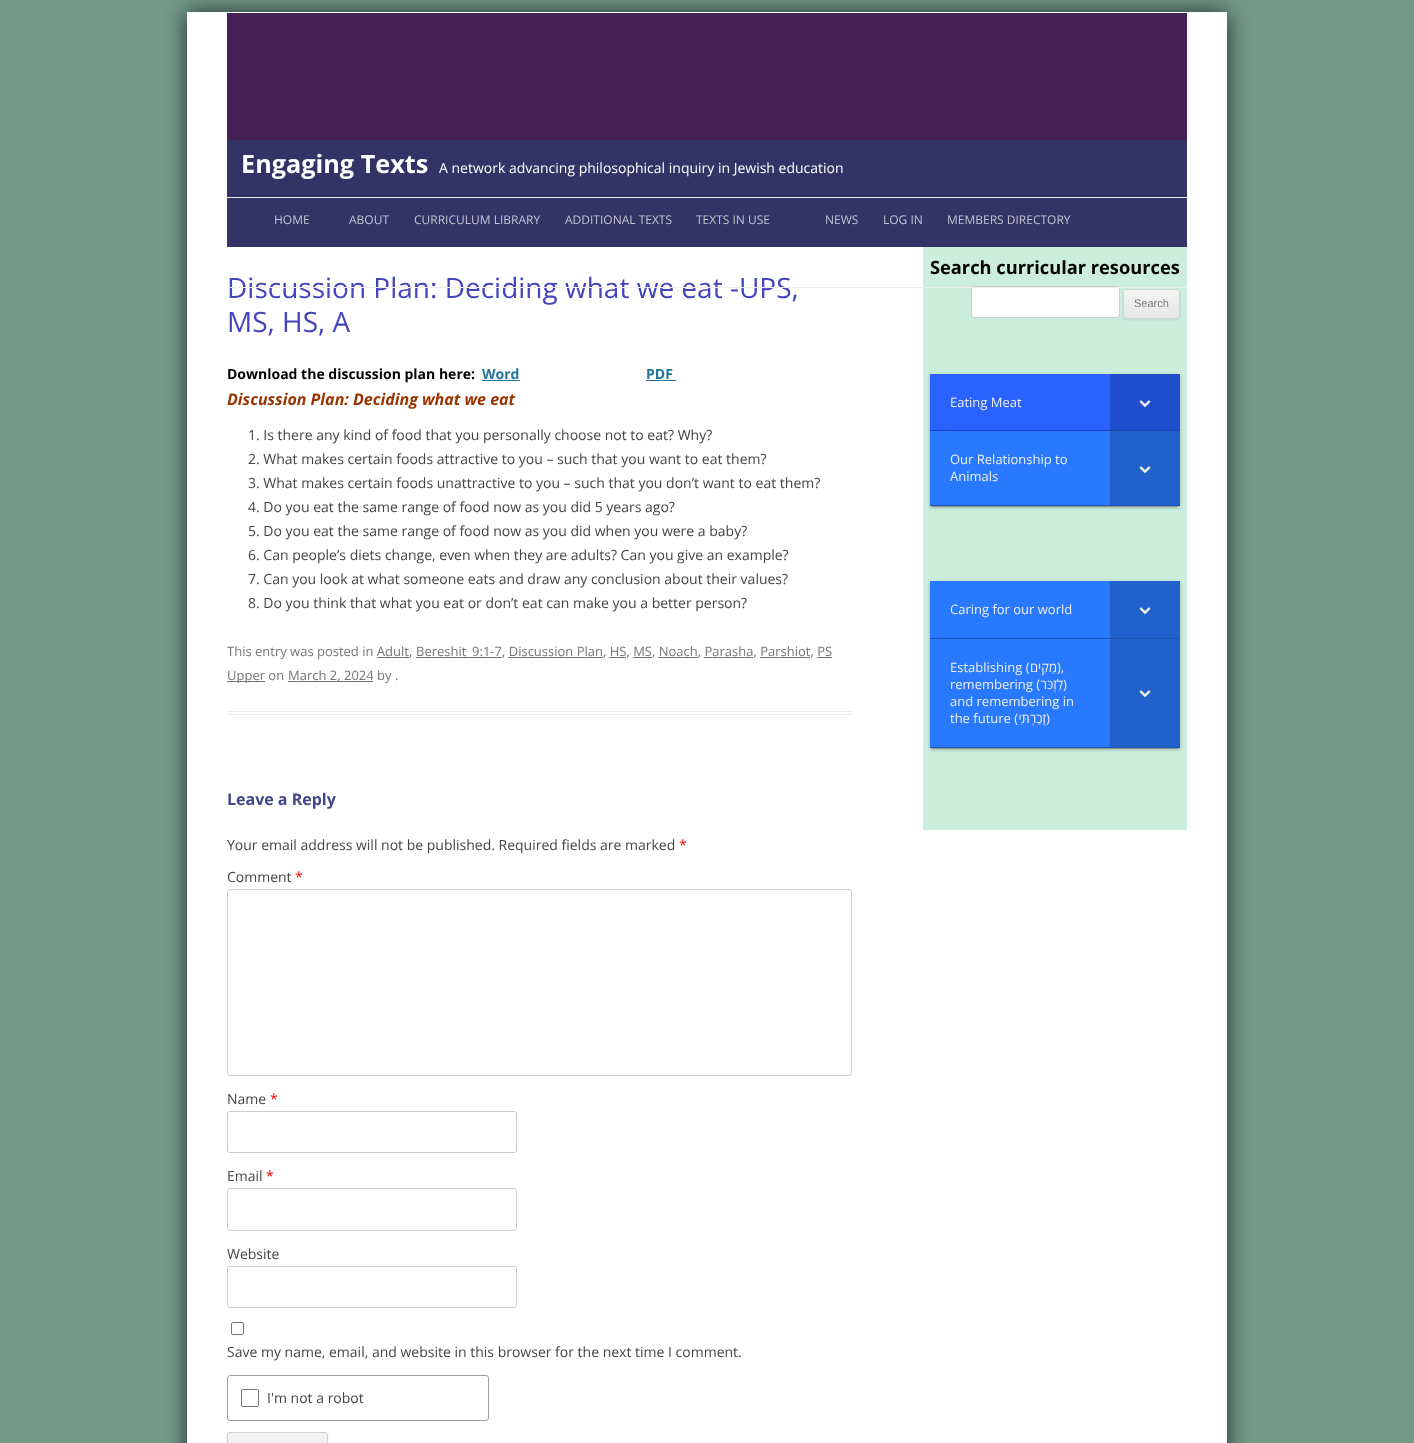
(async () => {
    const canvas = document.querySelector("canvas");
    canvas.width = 1414;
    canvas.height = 1443;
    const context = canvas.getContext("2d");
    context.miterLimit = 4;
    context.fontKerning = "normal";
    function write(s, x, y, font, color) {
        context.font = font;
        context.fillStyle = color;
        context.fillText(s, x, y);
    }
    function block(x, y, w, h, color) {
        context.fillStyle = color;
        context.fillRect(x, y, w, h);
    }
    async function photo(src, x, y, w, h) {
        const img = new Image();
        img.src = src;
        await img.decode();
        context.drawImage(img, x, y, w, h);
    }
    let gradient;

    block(0, 0, 1414, 1443, "rgb(114, 153, 137)");
    context.fillStyle = "rgba(0, 0, 0, 0.7)";
    context.filter = "blur(10.5px)";
    context.beginPath();
    context.rect(187, 12, 1040, 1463);
    context.fill();
    context.filter = "none";
    block(187, 12, 1040, 1431, "rgb(255, 255, 255)");
    block(227, 13, 960, 127, "rgb(68, 34, 85)");
    block(227, 140, 960, 57, "rgb(51, 51, 102)");
    write("Engaging Texts", 241, 173, "bold 25.25px Open Sans", "rgb(255, 255, 255)");
    write("A network advancing philosophical inquiry in Jewish education", 439, 173, "14px Open Sans", "rgb(255, 255, 255)");
    block(227, 198, 960, 49, "rgb(51, 51, 102)");
    block(227, 197, 960, 1, "rgb(237, 237, 237)");
    write("Discussion Plan: Deciding what we eat -UPS,", 227, 298, "28px Open Sans", "rgb(68, 68, 187)");
    block(923, 247, 264, 583, "rgb(204, 238, 221)");
    context.fillStyle = "rgb(255, 255, 255)";
    context.beginPath();
    context.roundRect(971.5, 286.5, 148, 31, 2.5);
    context.fill();
    context.strokeStyle = "rgb(204, 204, 204)";
    context.stroke();
    context.fillStyle = "rgba(64, 64, 64, 0.1)";
    context.filter = "blur(1px)";
    context.beginPath();
    context.roundRect(1123, 290, 57, 30, 3);
    context.fill();
    context.filter = "none";
    block(227, 287, 960, 1, "rgb(237, 237, 237)");
    write("HOME", 274, 224, "12px Open Sans", "rgb(194, 194, 209)");
    write("ABOUT", 349, 224, "12px Open Sans", "rgb(194, 194, 209)");
    write("CURRICULUM LIBRARY", 414, 224, "12px Open Sans", "rgb(194, 194, 209)");
    write("ADDITIONAL TEXTS", 565, 224, "12px Open Sans", "rgb(194, 194, 209)");
    write("TEXTS IN USE", 696, 224, "12px Open Sans", "rgb(194, 194, 209)");
    write("NEWS", 825, 224, "12px Open Sans", "rgb(194, 194, 209)");
    write("LOG IN", 883, 224, "12px Open Sans", "rgb(194, 194, 209)");
    write("MEMBERS DIRECTORY", 947, 224, "12px Open Sans", "rgb(194, 194, 209)");
    block(227, 711, 625, 1, "rgb(237, 237, 237)");
    block(227, 714, 625, 1, "rgb(237, 237, 237)");
    write("MS, HS, A", 227, 332, "28px Open Sans", "rgb(68, 68, 187)");
    write("Download the discussion plan here:", 227, 379, "bold 14px Open Sans", "rgb(0, 0, 0)");
    write("Word", 482, 379, "bold 14px Open Sans", "rgb(33, 117, 155)");
    block(482, 380, 38, 1, "rgb(33, 117, 155)");
    write("PDF", 646, 379, "bold 14px Open Sans", "rgb(33, 117, 155)");
    block(646, 380, 30, 1, "rgb(33, 117, 155)");
    write("Discussion Plan: Deciding what we eat", 227, 405, "italic bold 16px Open Sans", "rgb(153, 51, 0)");
    write("1. Is there any kind of food that you personally choose not to eat? Why?", 248, 440, "14px Open Sans", "rgb(68, 68, 68)");
    write("2. What makes certain foods attractive to you – such that you want to eat them?", 248, 464, "14px Open Sans", "rgb(68, 68, 68)");
    write("3. What makes certain foods unattractive to you – such that you don’t want to eat them?", 248, 488, "14px Open Sans", "rgb(68, 68, 68)");
    write("4. Do you eat the same range of food now as you did 5 years ago?", 248, 512, "14px Open Sans", "rgb(68, 68, 68)");
    write("5. Do you eat the same range of food now as you did when you were a baby?", 248, 536, "14px Open Sans", "rgb(68, 68, 68)");
    write("6. Can people’s diets change, even when they are adults? Can you give an example?", 248, 560, "14px Open Sans", "rgb(68, 68, 68)");
    write("7. Can you look at what someone eats and draw any conclusion about their values?", 248, 584, "14px Open Sans", "rgb(68, 68, 68)");
    write("8. Do you think that what you eat or don’t eat can make you a better person?", 248, 608, "14px Open Sans", "rgb(68, 68, 68)");
    write("This entry was posted in Adult,", 227, 656, "13px Open Sans", "rgb(117, 117, 117)");
    block(416, 657, 86, 1, "rgb(117, 117, 117)");
    write("Bereshit_9:1-7, Discussion Plan, HS, MS, Noach, Parasha, Parshiot, PS", 416, 656, "13px Open Sans", "rgb(117, 117, 117)");
    block(377, 657, 32, 1, "rgb(117, 117, 117)");
    block(508, 657, 95, 1, "rgb(117, 117, 117)");
    block(609, 657, 17, 1, "rgb(117, 117, 117)");
    block(633, 657, 19, 1, "rgb(117, 117, 117)");
    block(658, 657, 40, 1, "rgb(117, 117, 117)");
    block(704, 657, 49, 1, "rgb(117, 117, 117)");
    block(760, 657, 50, 1, "rgb(117, 117, 117)");
    block(227, 681, 38, 1, "rgb(117, 117, 117)");
    write("Upper on", 227, 680, "13px Open Sans", "rgb(117, 117, 117)");
    block(817, 657, 15, 1, "rgb(117, 117, 117)");
    block(288, 681, 85, 1, "rgb(117, 117, 117)");
    write("March 2, 2024 by .", 288, 680, "13px Open Sans", "rgb(117, 117, 117)");
    write("Leave a Reply", 227, 805, "bold 16px Open Sans", "rgb(68, 68, 136)");
    write("Your email address will not be published. Required fields are marked", 227, 850, "14px Open Sans", "rgb(68, 68, 68)");
    write("*", 679, 850, "14px Open Sans", "rgb(255, 0, 0)");
    write("Comment", 227, 882, "14px Open Sans", "rgb(68, 68, 68)");
    write("*", 295, 882, "14px Open Sans", "rgb(255, 0, 0)");
    context.beginPath();
    context.roundRect(227.5, 889.5, 624, 186, 2.5);
    context.stroke();
    write("Name", 227, 1104, "14px Open Sans", "rgb(68, 68, 68)");
    write("*", 270, 1104, "14px Open Sans", "rgb(255, 0, 0)");
    context.beginPath();
    context.roundRect(227.5, 1111.5, 289, 41, 2.5);
    context.stroke();
    write("Email", 227, 1181, "14px Open Sans", "rgb(68, 68, 68)");
    write("*", 266, 1181, "14px Open Sans", "rgb(255, 0, 0)");
    context.beginPath();
    context.roundRect(227.5, 1188.5, 289, 42, 2.5);
    context.stroke();
    write("Website", 227, 1259, "14px Open Sans", "rgb(68, 68, 68)");
    context.beginPath();
    context.roundRect(227.5, 1266.5, 289, 41, 2.5);
    context.stroke();
    context.beginPath();
    context.roundRect(231.5, 1322.5, 12, 12, 1.5);
    context.strokeStyle = "rgb(118, 118, 118)";
    context.stroke();
    write("Save my name, email, and website in this browser for the next time I comment.", 227, 1357, "14px Open Sans", "rgb(68, 68, 68)");
    context.beginPath();
    context.roundRect(227.5, 1375.5, 261, 45, 2.5);
    context.strokeStyle = "rgb(160, 160, 160)";
    context.stroke();
    context.beginPath();
    context.roundRect(241.5, 1389.5, 17, 17, 1.5);
    context.strokeStyle = "rgb(118, 118, 118)";
    context.stroke();
    write("I'm not a robot", 267, 1403, "14px Open Sans", "rgb(68, 68, 68)");
    context.fillStyle = "rgba(64, 64, 64, 0.1)";
    context.filter = "blur(1px)";
    context.beginPath();
    context.roundRect(227, 1433, 101, 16, 3);
    context.fill();
    context.filter = "none";
    context.save();
    context.beginPath();
    context.roundRect(227, 1432, 101, 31, 3);
    context.clip();
    gradient = context.createLinearGradient(278, 1433, 278, 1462);
    gradient.addColorStop(0, "rgb(244, 244, 244)");
    gradient.addColorStop(1, "rgb(230, 230, 230)");
    context.fillStyle = gradient;
    context.fillRect(227, 1433, 101, 10);
    context.restore();
    context.beginPath();
    context.roundRect(227.5, 1432.5, 100, 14, 2.5);
    context.strokeStyle = "rgb(210, 210, 210)";
    context.stroke();
    write("Search curricular resources", 930, 274, "bold 18.25px Open Sans", "rgb(0, 0, 0)");
    context.save();
    context.beginPath();
    context.roundRect(1123, 289, 57, 30, 3);
    context.clip();
    gradient = context.createLinearGradient(1152, 290, 1152, 318);
    gradient.addColorStop(0, "rgb(244, 244, 244)");
    gradient.addColorStop(1, "rgb(230, 230, 230)");
    context.fillStyle = gradient;
    context.fillRect(1123, 290, 57, 28);
    context.restore();
    context.beginPath();
    context.roundRect(1123.5, 289.5, 56, 29, 2.5);
    context.stroke();
    write("Search", 1134, 307, "11px Liberation Sans", "rgb(124, 124, 124)");
    context.fillStyle = "rgba(0, 0, 0, 0.12)";
    context.filter = "blur(2.5px)";
    context.beginPath();
    context.rect(930, 375, 250, 132);
    context.fill();
    context.filter = "none";
    context.fillStyle = "rgba(0, 0, 0, 0.2)";
    context.filter = "blur(0.5px)";
    context.beginPath();
    context.rect(932, 379, 246, 128);
    context.fill();
    context.filter = "none";
    context.fillStyle = "rgba(0, 0, 0, 0.14)";
    context.filter = "blur(1px)";
    context.beginPath();
    context.rect(930, 376, 250, 132);
    context.fill();
    context.filter = "none";
    block(930, 431, 180, 74, "rgb(41, 121, 255)");
    block(930, 374, 180, 56, "rgb(41, 98, 255)");
    block(930, 430, 250, 1, "rgb(29, 69, 179)");
    write("Eating Meat", 950, 407, "13px Open Sans", "rgb(238, 238, 238)");
    block(1110, 374, 70, 56, "rgb(33, 78, 204)");
    await photo("media/1.png", 1139, 400, 12, 8);
    block(930, 505, 250, 1, "rgb(29, 85, 179)");
    write("Our Relationship to", 950, 464, "13px Open Sans", "rgb(238, 238, 238)");
    write("Animals", 950, 481, "13px Open Sans", "rgb(238, 238, 238)");
    block(1110, 431, 70, 74, "rgb(33, 97, 204)");
    await photo("media/2.png", 1139, 466, 12, 8);
    context.fillStyle = "rgba(0, 0, 0, 0.12)";
    context.filter = "blur(2.5px)";
    context.beginPath();
    context.rect(930, 582, 250, 167);
    context.fill();
    context.filter = "none";
    context.fillStyle = "rgba(0, 0, 0, 0.2)";
    context.filter = "blur(0.5px)";
    context.beginPath();
    context.rect(932, 586, 246, 163);
    context.fill();
    context.filter = "none";
    context.fillStyle = "rgba(0, 0, 0, 0.14)";
    context.filter = "blur(1px)";
    context.beginPath();
    context.rect(930, 583, 250, 167);
    context.fill();
    context.filter = "none";
    block(930, 581, 180, 166, "rgb(41, 121, 255)");
    block(930, 638, 250, 1, "rgb(29, 85, 179)");
    write("Caring for our world", 950, 614, "13px Open Sans", "rgb(238, 238, 238)");
    block(1110, 581, 70, 57, "rgb(33, 97, 204)");
    await photo("media/2.png", 1139, 607, 12, 8);
    block(930, 747, 250, 1, "rgb(29, 85, 179)");
    write("Establishing (", 950, 672, "13px Open Sans", "rgb(238, 238, 238)");
    context.direction = "rtl";
    write("מֵקִים", 1057, 672, "13px Open Sans", "rgb(238, 238, 238)");
    context.direction = "ltr";
    write("),", 1057, 672, "13px Open Sans", "rgb(238, 238, 238)");
    write("remembering (", 950, 689, "13px Open Sans", "rgb(238, 238, 238)");
    context.direction = "rtl";
    write("לִזְכֹּר", 1063, 689, "13px Open Sans", "rgb(238, 238, 238)");
    context.direction = "ltr";
    write(")", 1063, 689, "13px Open Sans", "rgb(238, 238, 238)");
    write("and remembering in", 950, 706, "13px Open Sans", "rgb(238, 238, 238)");
    write("the future (", 950, 723, "13px Open Sans", "rgb(238, 238, 238)");
    context.direction = "rtl";
    write("זָכַרְתִּי", 1046, 723, "13px Open Sans", "rgb(238, 238, 238)");
    context.direction = "ltr";
    write(")", 1046, 723, "13px Open Sans", "rgb(238, 238, 238)");
    block(1110, 639, 70, 108, "rgb(33, 97, 204)");
    await photo("media/2.png", 1139, 690, 12, 8);
})();
